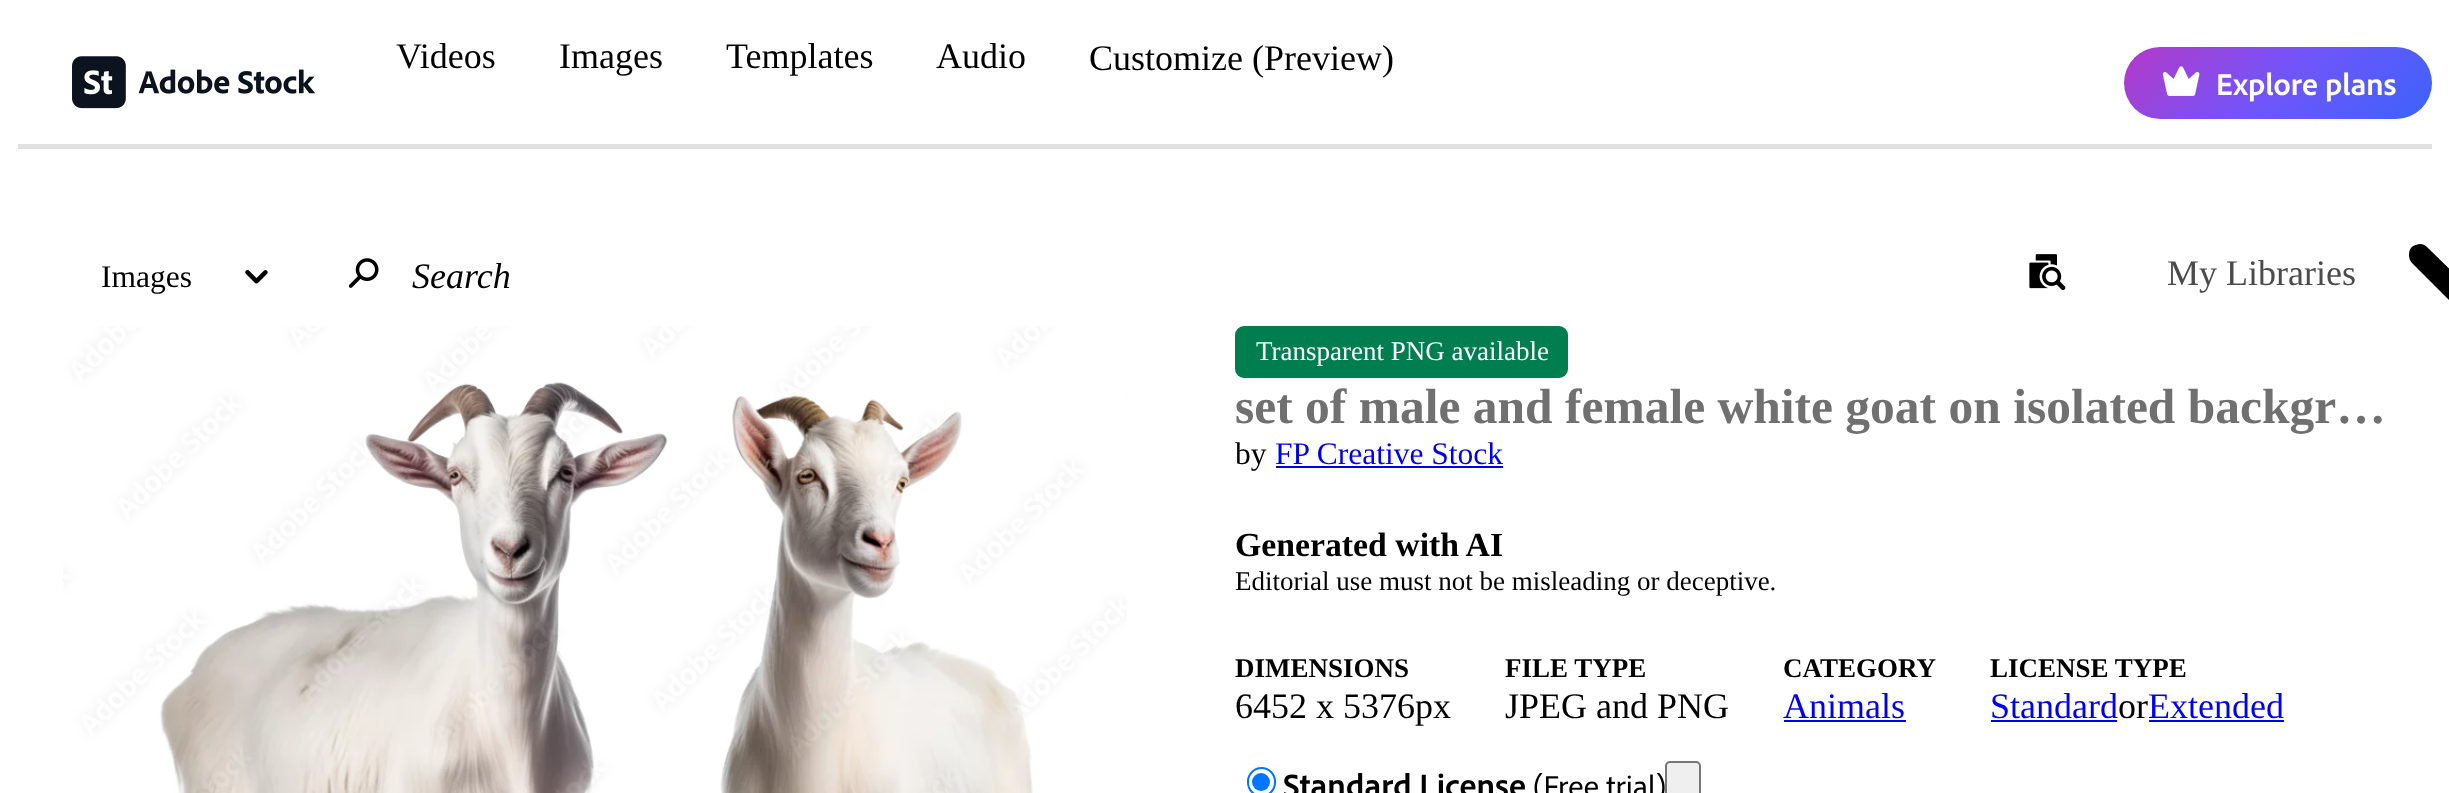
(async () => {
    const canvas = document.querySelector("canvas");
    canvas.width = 2449;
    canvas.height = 793;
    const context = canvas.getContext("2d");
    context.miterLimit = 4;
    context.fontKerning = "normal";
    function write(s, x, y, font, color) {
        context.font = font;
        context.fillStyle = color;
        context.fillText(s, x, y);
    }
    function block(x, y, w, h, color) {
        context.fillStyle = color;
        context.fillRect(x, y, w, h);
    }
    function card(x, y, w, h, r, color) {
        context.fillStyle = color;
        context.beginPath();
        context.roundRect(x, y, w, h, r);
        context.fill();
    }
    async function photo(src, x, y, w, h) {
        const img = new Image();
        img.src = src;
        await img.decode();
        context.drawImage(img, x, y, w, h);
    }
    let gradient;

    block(0, 0, 2449, 793, "rgb(255, 255, 255)");
    block(18, 144, 2414, 5, "rgb(225, 225, 225)");
    await photo("media/1.png", 72, 56, 243, 53);
    write("Videos", 396, 68, "36px Liberation Serif", "rgb(0, 0, 0)");
    write("Images", 559, 68, "36px Liberation Serif", "rgb(0, 0, 0)");
    write("Templates", 726, 68, "36px Liberation Serif", "rgb(0, 0, 0)");
    write("Audio", 936, 68, "36px Liberation Serif", "rgb(0, 0, 0)");
    write("Customize (Preview)", 1089, 70, "36px Liberation Serif", "rgb(0, 0, 0)");
    gradient = context.createLinearGradient(2183, -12, 2373, 178);
    gradient.addColorStop(0, "rgb(181, 57, 200)");
    gradient.addColorStop(0.5, "rgb(113, 85, 250)");
    gradient.addColorStop(1, "rgb(59, 99, 251)");
    context.fillStyle = gradient;
    context.beginPath();
    context.roundRect(2124, 47, 308, 72, 36);
    context.fill();
    await photo("media/2.png", 2162, 66, 38, 30);
    write("Explore plans", 2216, 95, "bold 31.5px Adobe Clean", "rgb(255, 255, 255)");
    write("Images", 101, 287, "31.5px Liberation Serif", "rgb(0, 0, 0)");
    await photo("media/3.png", 245, 270, 23, 14);
    await photo("media/4.png", 349, 258, 30, 30);
    write("Search", 412, 288, "italic 36px Liberation Serif", "rgb(0, 0, 0)");
    await photo("media/5.png", 2029, 254, 37, 36);
    write("My Libraries", 2167, 285, "36px Liberation Serif", "rgb(75, 75, 75)");
    context.fillStyle = "rgb(0, 0, 0)";
    context.beginPath();
    context.moveTo(2409, 255);
    context.bezierCurveTo(2409, 250, 2411, 246, 2416, 245);
    context.bezierCurveTo(2420, 243, 2424, 244, 2427, 247);
    context.lineTo(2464, 283);
    context.lineTo(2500, 247);
    context.bezierCurveTo(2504, 243, 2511, 243, 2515, 247);
    context.bezierCurveTo(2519, 251, 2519, 258, 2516, 262);
    context.lineTo(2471, 307);
    context.bezierCurveTo(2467, 311, 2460, 311, 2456, 307);
    context.lineTo(2412, 263);
    context.bezierCurveTo(2410, 261, 2409, 258, 2409, 255);
    context.closePath();
    context.fill();
    await photo("media/6.png", 63, 326, 1064, 467);
    card(1235, 326, 333, 52, 9, "rgb(0, 126, 80)");
    write("Transparent PNG available", 1256, 360, "27px Liberation Serif", "rgb(255, 255, 255)");
    write("set of male and female white goat on isolated backgr…", 1235, 423, "bold 49.5px Liberation Serif", "rgb(112, 112, 112)");
    write("by", 1235, 464, "31.5px Liberation Serif", "rgb(0, 0, 0)");
    write("FP Creative Stock", 1275, 464, "31.5px Liberation Serif", "rgb(0, 0, 238)");
    block(1276, 466, 227, 2, "rgb(0, 0, 238)");
    write("Generated with AI", 1235, 556, "bold 33.75px Liberation Serif", "rgb(0, 0, 0)");
    write("Editorial use must not be misleading or deceptive.", 1235, 590, "27px Liberation Serif", "rgb(0, 0, 0)");
    write("DIMENSIONS", 1235, 677, "bold 27px Liberation Serif", "rgb(0, 0, 0)");
    write("6452 x 5376px", 1235, 718, "36px Liberation Serif", "rgb(0, 0, 0)");
    write("FILE TYPE", 1505, 677, "bold 27px Liberation Serif", "rgb(0, 0, 0)");
    write("JPEG and PNG", 1505, 718, "36px Liberation Serif", "rgb(0, 0, 0)");
    write("CATEGORY", 1783, 677, "bold 27px Liberation Serif", "rgb(0, 0, 0)");
    write("Animals", 1783, 718, "36px Liberation Serif", "rgb(0, 0, 238)");
    block(1784, 720, 122, 2, "rgb(0, 0, 238)");
    write("LICENSE TYPE", 1990, 677, "bold 27px Liberation Serif", "rgb(0, 0, 0)");
    write("Standard", 1990, 718, "36px Liberation Serif", "rgb(0, 0, 238)");
    write("or", 2118, 718, "36px Liberation Serif", "rgb(0, 0, 0)");
    block(1991, 720, 126, 2, "rgb(0, 0, 238)");
    block(2149, 720, 135, 2, "rgb(0, 0, 238)");
    write("Extended", 2148, 718, "36px Liberation Serif", "rgb(0, 0, 238)");
    context.beginPath();
    context.roundRect(1248, 768, 27, 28, 13.5);
    context.strokeStyle = "rgb(0, 117, 255)";
    context.lineWidth = 2;
    context.stroke();
    context.fillStyle = "rgb(0, 117, 255)";
    context.beginPath();
    context.arc(1261, 782, 9, 0, Math.PI * 2);
    context.fill();
    write("Standard License", 1283, 797, "bold 33.75px Adobe Clean", "rgb(0, 0, 0)");
    write("(Free trial)", 1533, 797, "31.5px Adobe Clean", "rgb(0, 0, 0)");
    context.fillStyle = "rgb(239, 239, 239)";
    context.beginPath();
    context.roundRect(1666, 762, 34, 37, 4);
    context.fill();
    context.strokeStyle = "rgb(118, 118, 118)";
    context.stroke();
})();
